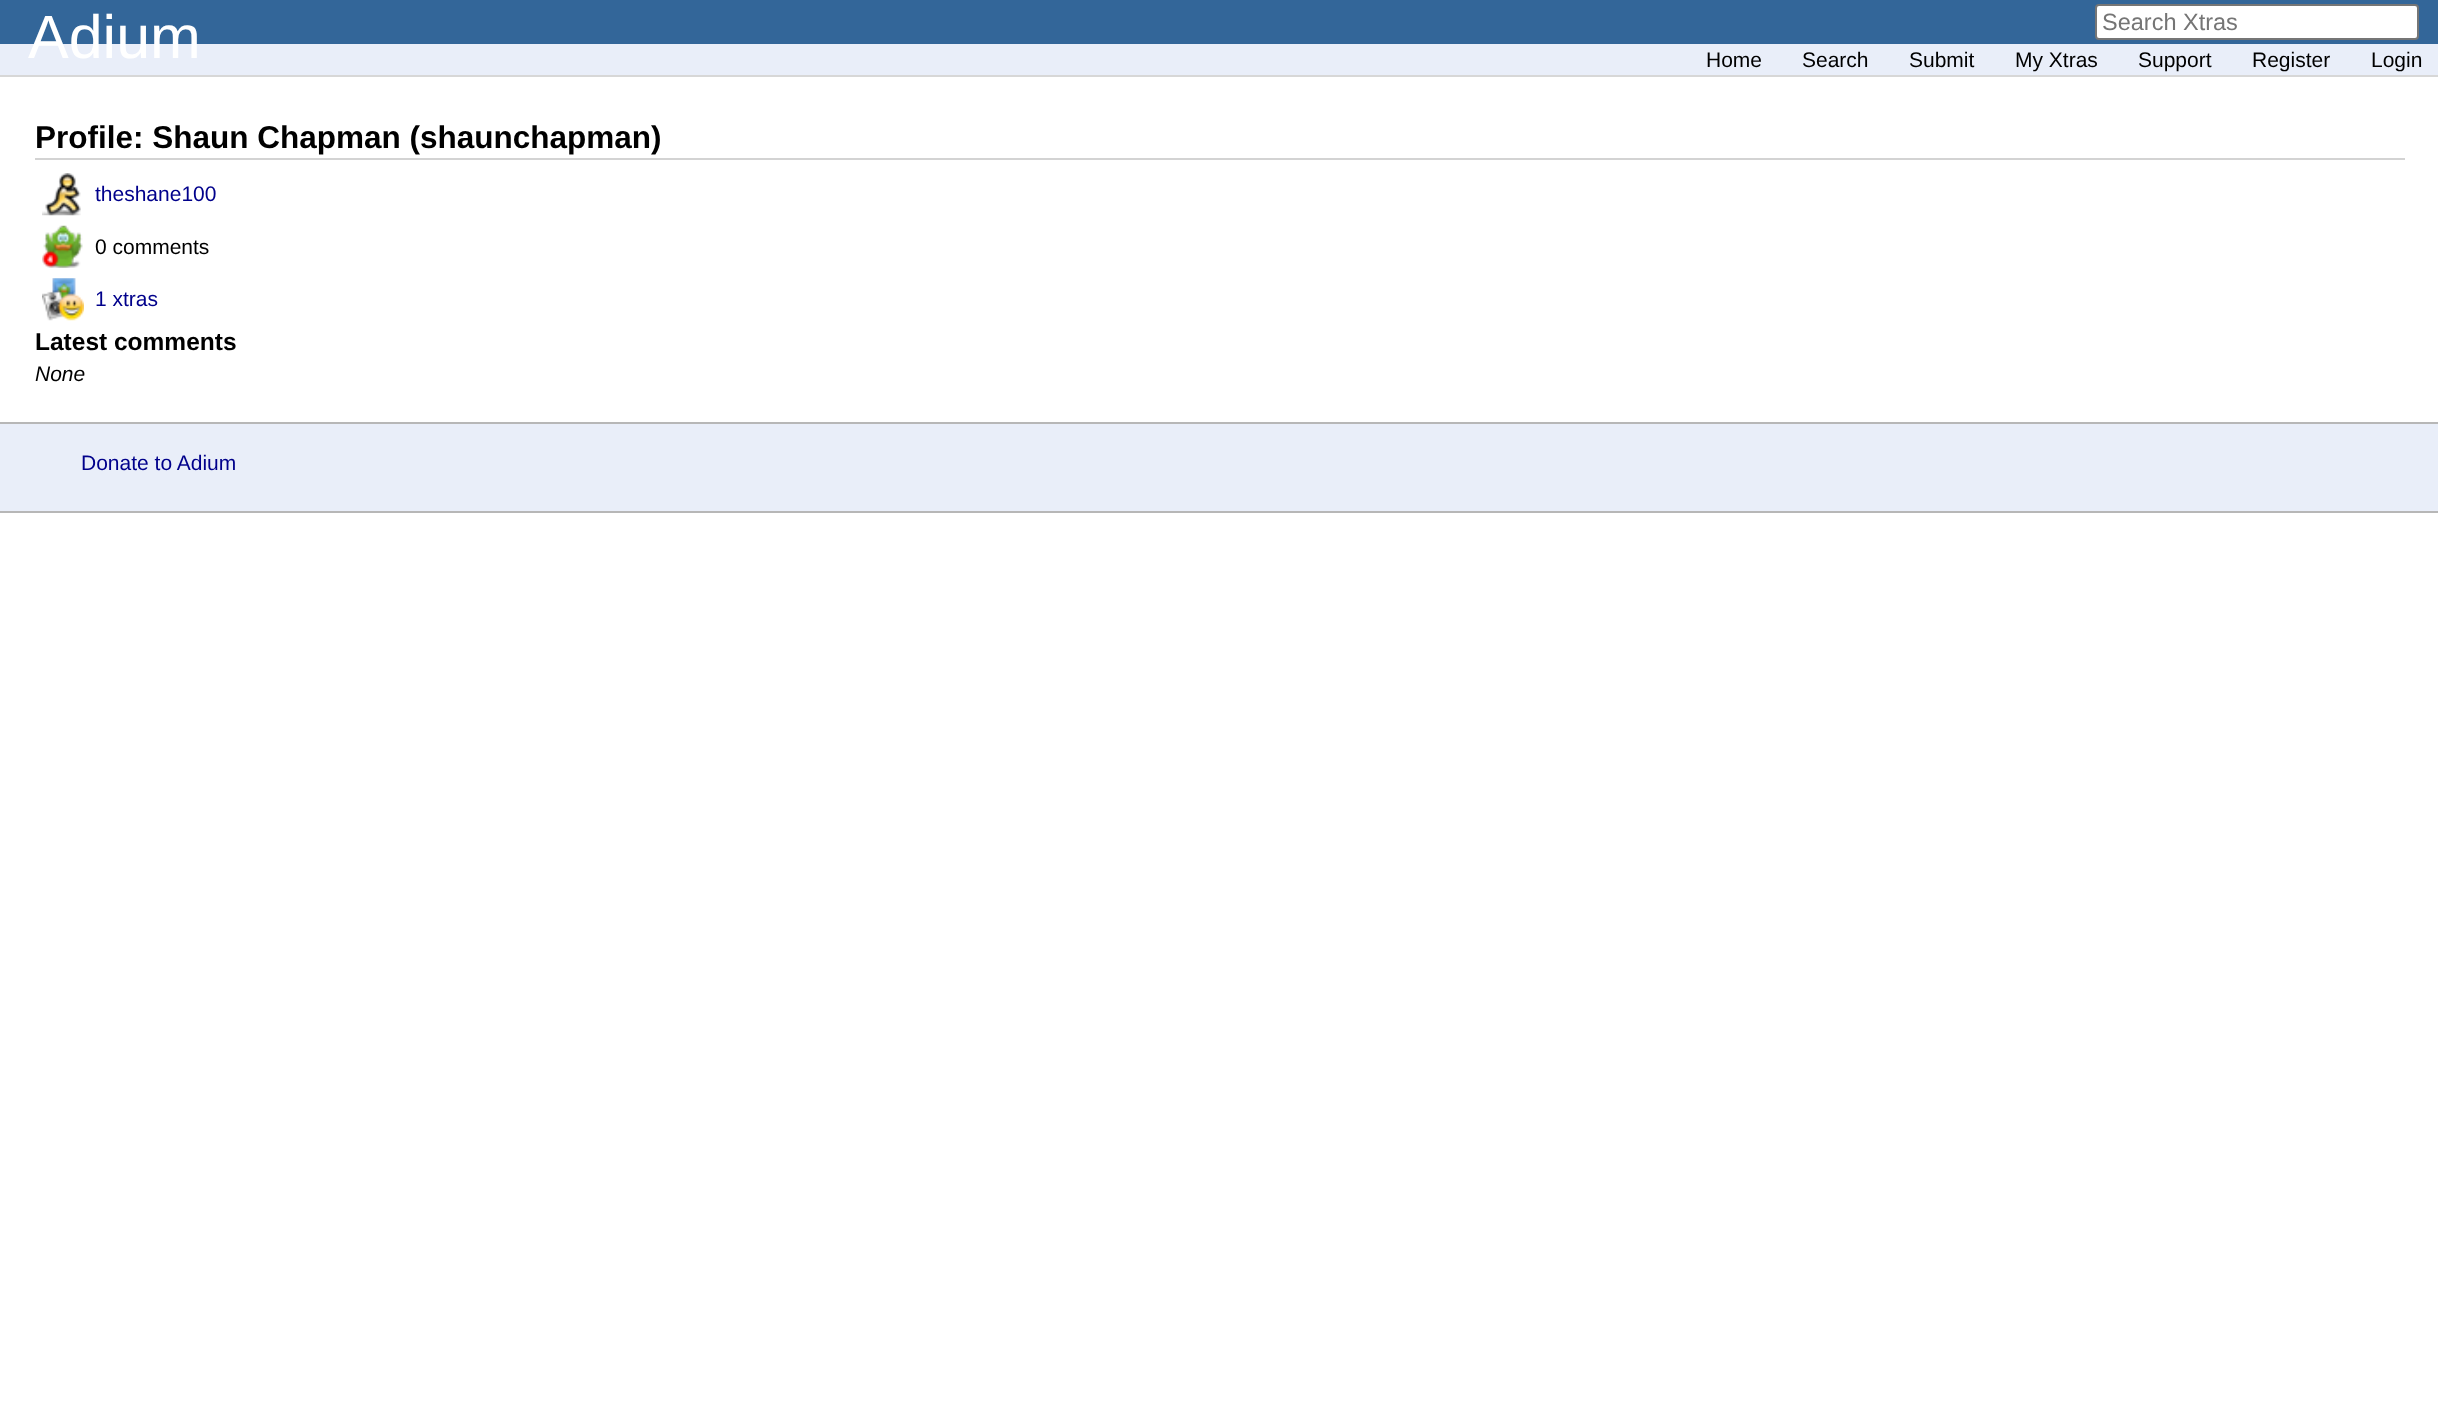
(async () => {
    const canvas = document.querySelector("canvas");
    canvas.width = 2438;
    canvas.height = 1416;
    const context = canvas.getContext("2d");
    context.miterLimit = 4;
    context.fontKerning = "normal";
    function write(s, x, y, font, color) {
        context.font = font;
        context.fillStyle = color;
        context.fillText(s, x, y);
    }
    function block(x, y, w, h, color) {
        context.fillStyle = color;
        context.fillRect(x, y, w, h);
    }
    async function photo(src, x, y, w, h) {
        const img = new Image();
        img.src = src;
        await img.decode();
        context.drawImage(img, x, y, w, h);
    }

    block(0, 0, 2438, 1416, "rgb(255, 255, 255)");
    block(0, 0, 2438, 44, "rgb(51, 102, 153)");
    block(0, 44, 2438, 31, "rgb(233, 238, 249)");
    write("Adium", 28, 58, "61px Liberation Sans", "rgb(255, 255, 255)");
    context.beginPath();
    context.roundRect(2096, 5, 322, 34, 3);
    context.fill();
    context.strokeStyle = "rgb(118, 118, 118)";
    context.lineWidth = 2;
    context.stroke();
    write("Search Xtras", 2102, 30, "23.5px Liberation Sans", "rgb(117, 117, 117)");
    block(0, 75, 2438, 2, "rgb(215, 215, 215)");
    write("Home", 1706, 67, "21px Liberation Sans", "rgb(0, 0, 0)");
    write("Search", 1802, 67, "21px Liberation Sans", "rgb(0, 0, 0)");
    write("Submit", 1909, 67, "21px Liberation Sans", "rgb(0, 0, 0)");
    write("My Xtras", 2015, 67, "21px Liberation Sans", "rgb(0, 0, 0)");
    write("Support", 2138, 67, "21px Liberation Sans", "rgb(0, 0, 0)");
    write("Register", 2252, 67, "21px Liberation Sans", "rgb(0, 0, 0)");
    write("Login", 2371, 67, "21px Liberation Sans", "rgb(0, 0, 0)");
    block(35, 158, 2370, 2, "rgb(211, 211, 211)");
    write("Profile: Shaun Chapman (shaunchapman)", 35, 148, "bold 31.5px Liberation Sans", "rgb(0, 0, 0)");
    await photo("media/1.png", 42, 173, 39, 43);
    write("theshane100", 95, 201, "21px Liberation Sans", "rgb(0, 0, 139)");
    await photo("media/2.png", 42, 225, 41, 43);
    write("0 comments", 95, 254, "21px Liberation Sans", "rgb(0, 0, 0)");
    await photo("media/3.png", 42, 278, 42, 43);
    write("1 xtras", 95, 306, "21px Liberation Sans", "rgb(0, 0, 139)");
    write("Latest comments", 35, 350, "bold 24.5px Liberation Sans", "rgb(0, 0, 0)");
    write("None", 35, 381, "italic 21px Liberation Sans", "rgb(0, 0, 0)");
    block(0, 424, 2438, 87, "rgb(233, 238, 249)");
    block(0, 422, 2438, 2, "rgb(183, 183, 183)");
    block(0, 511, 2438, 2, "rgb(183, 183, 183)");
    write("Donate to Adium", 81, 470, "21px Liberation Sans", "rgb(0, 0, 139)");
})();
